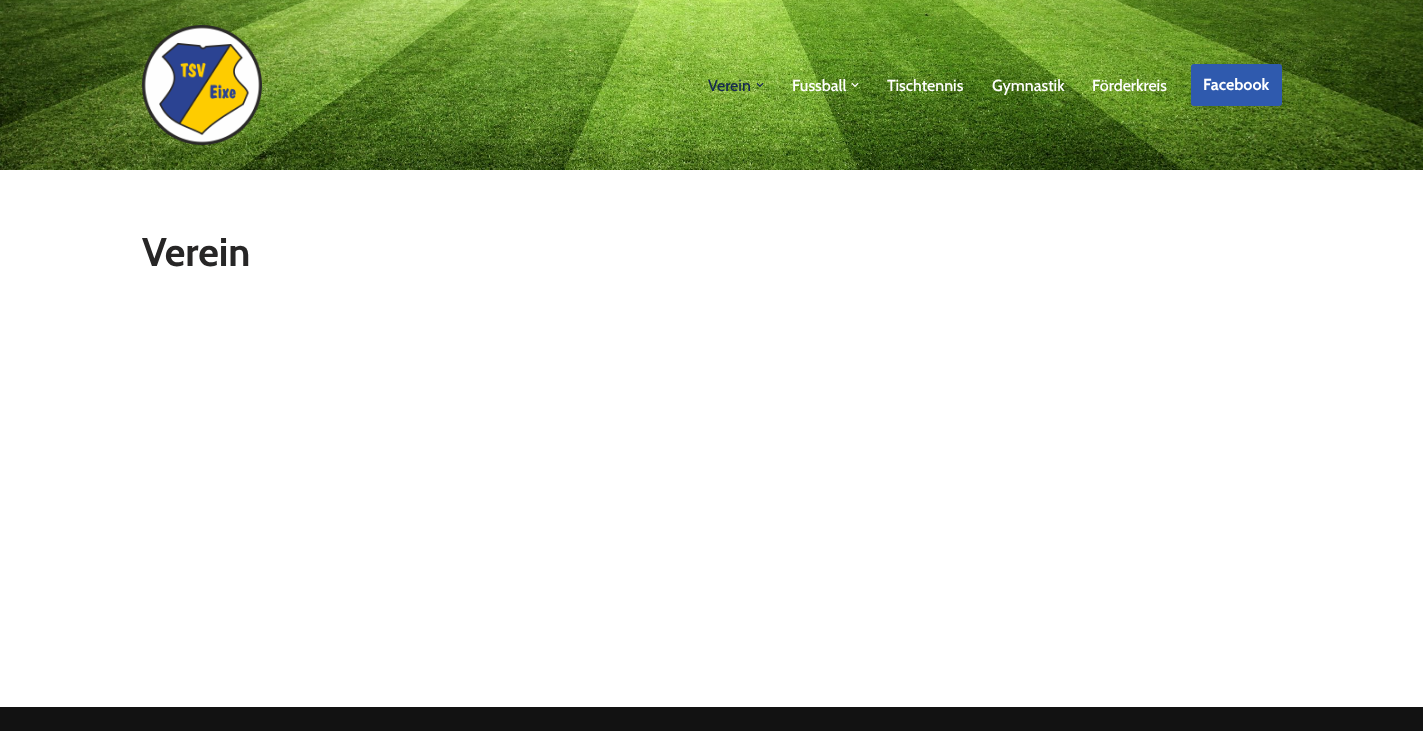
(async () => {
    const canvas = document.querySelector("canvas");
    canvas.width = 1423;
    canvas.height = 731;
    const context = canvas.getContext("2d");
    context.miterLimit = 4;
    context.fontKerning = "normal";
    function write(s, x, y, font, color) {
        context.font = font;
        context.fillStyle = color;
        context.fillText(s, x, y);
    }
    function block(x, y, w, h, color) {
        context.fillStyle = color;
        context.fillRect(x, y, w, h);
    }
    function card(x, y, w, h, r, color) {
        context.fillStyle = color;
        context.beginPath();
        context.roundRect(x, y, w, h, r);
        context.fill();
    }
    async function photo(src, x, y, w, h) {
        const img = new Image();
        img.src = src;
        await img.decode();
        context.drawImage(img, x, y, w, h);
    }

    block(0, 0, 1423, 731, "rgb(255, 255, 255)");
    await photo("media/1.png", 0, 0, 1423, 170);
    await photo("media/2.png", 142, 25, 120, 120);
    write("Verein", 708, 91, "500 16px Cabin", "rgb(21, 40, 79)");
    await photo("media/3.png", 756, 83, 8, 4);
    write("Fussball", 792, 91, "500 16px Cabin", "rgb(255, 255, 255)");
    await photo("media/4.png", 851, 83, 8, 4);
    write("Tischtennis", 887, 91, "500 16px Cabin", "rgb(255, 255, 255)");
    write("Gymnastik", 992, 91, "500 16px Cabin", "rgb(255, 255, 255)");
    write("Förderkreis", 1092, 91, "500 16px Cabin", "rgb(255, 255, 255)");
    card(1191, 64, 91, 42, 3, "rgb(47, 90, 174)");
    write("Facebook", 1203, 90, "bold 16px Cabin", "rgb(255, 255, 255)");
    write("Verein", 142, 266, "bold 40px Cabin", "rgb(39, 38, 38)");
    block(0, 707, 1423, 24, "rgb(18, 18, 18)");
})();
